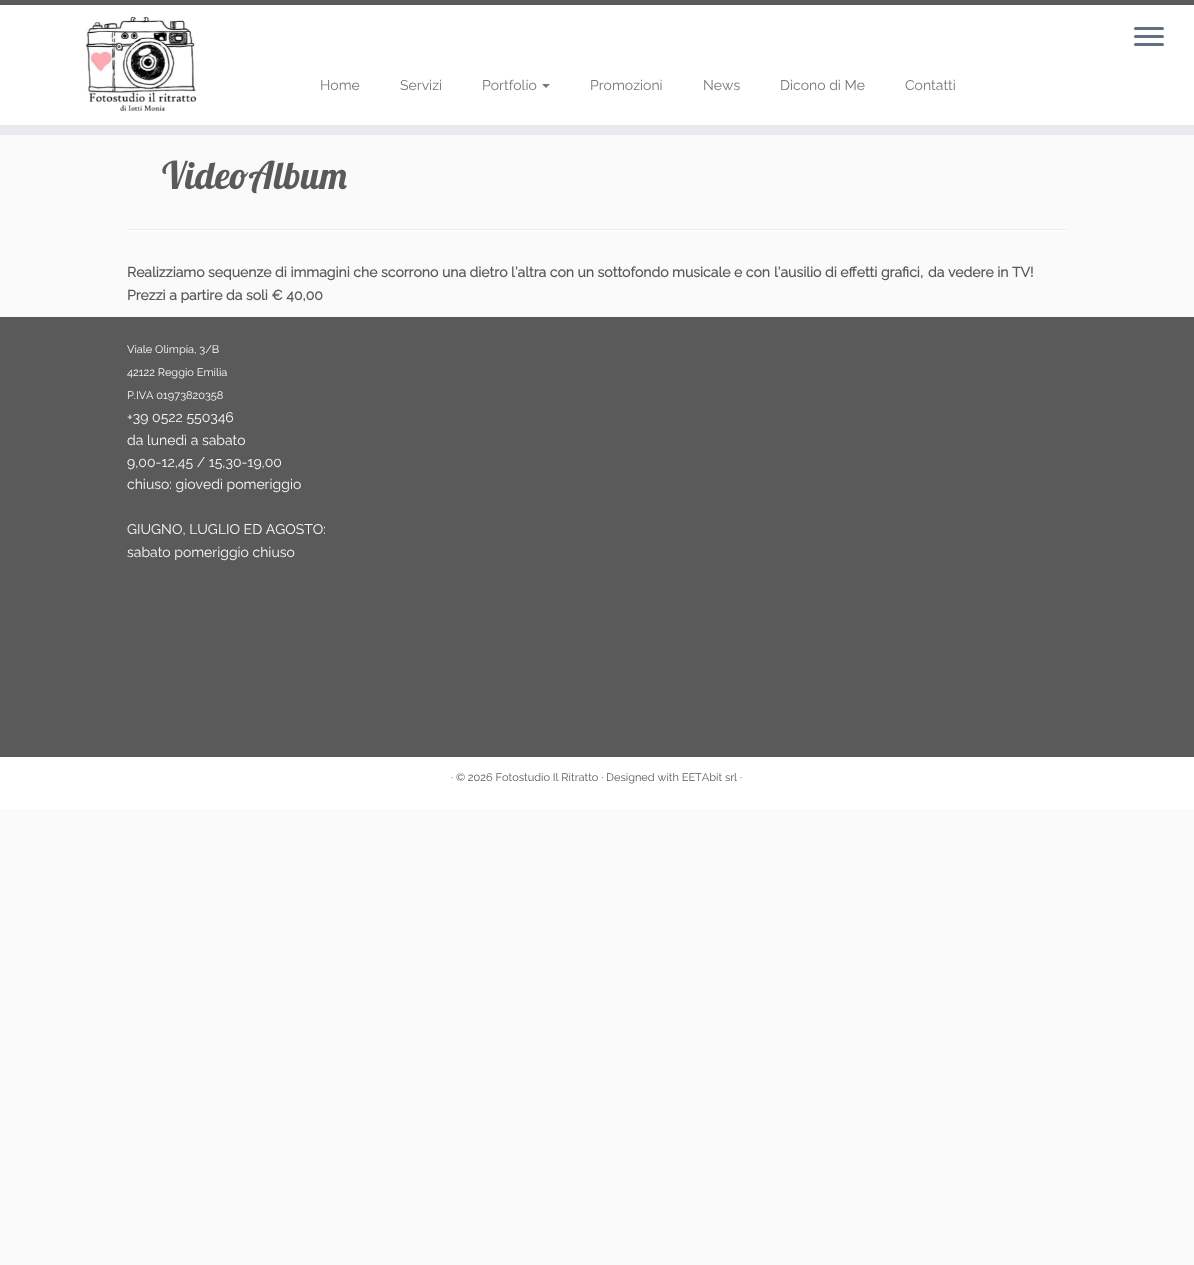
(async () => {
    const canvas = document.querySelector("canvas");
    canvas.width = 1194;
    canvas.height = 1265;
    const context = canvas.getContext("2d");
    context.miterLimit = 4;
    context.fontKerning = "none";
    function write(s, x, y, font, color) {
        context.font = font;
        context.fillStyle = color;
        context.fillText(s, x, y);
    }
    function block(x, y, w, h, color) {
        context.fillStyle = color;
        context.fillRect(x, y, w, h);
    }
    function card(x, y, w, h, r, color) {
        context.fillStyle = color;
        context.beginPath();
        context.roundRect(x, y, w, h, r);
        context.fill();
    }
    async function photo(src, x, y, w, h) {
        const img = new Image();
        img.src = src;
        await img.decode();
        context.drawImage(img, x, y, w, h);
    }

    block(0, 0, 1194, 1265, "rgb(250, 250, 250)");
    block(0, 5, 1194, 120, "rgb(255, 255, 255)");
    block(0, 0, 1194, 5, "rgb(90, 90, 90)");
    block(0, 125, 1194, 10, "rgb(233, 234, 238)");
    await photo("media/1.png", 85, 15, 112, 96);
    card(1134, 27, 30, 3, 1.5, "rgb(95, 111, 129)");
    card(1134, 35, 30, 3, 1.5, "rgb(95, 111, 129)");
    card(1134, 43, 30, 3, 1.5, "rgb(95, 111, 129)");
    write("Home", 320, 90, "100 14px Raleway", "rgb(119, 119, 119)");
    write("Servizi", 400, 90, "100 14px Raleway", "rgb(119, 119, 119)");
    write("Portfolio", 482, 90, "100 14px Raleway", "rgb(119, 119, 119)");
    context.beginPath();
    context.moveTo(542, 84);
    context.lineTo(550, 84);
    context.lineTo(546, 88);
    context.closePath();
    context.fill();
    write("Promozioni", 590, 90, "100 14px Raleway", "rgb(119, 119, 119)");
    write("News", 703, 90, "100 14px Raleway", "rgb(119, 119, 119)");
    write("Dicono di Me", 780, 90, "100 14px Raleway", "rgb(119, 119, 119)");
    write("Contatti", 905, 90, "100 14px Raleway", "rgb(119, 119, 119)");
    write("VideoAlbum", 162, 189, "38px Lobster", "rgb(90, 90, 90)");
    block(127, 229, 940, 1, "rgb(238, 238, 238)");
    block(127, 230, 940, 1, "rgb(255, 255, 255)");
    write("Realizziamo sequenze di immagini che scorrono una dietro l’altra con un sottofondo musicale e con", 127, 277, "bold 14px Raleway", "rgb(90, 90, 90)");
    write("l’ausilio di effetti grafici,", 774, 277, "bold 14px Raleway", "rgb(90, 90, 90)");
    write("da vedere in TV!", 928, 277, "bold 14px Raleway", "rgb(90, 90, 90)");
    write("Prezzi a partire da soli € 40,00", 127, 300, "bold 14px Raleway", "rgb(90, 90, 90)");
    block(0, 317, 1194, 440, "rgb(90, 90, 90)");
    write("Viale Olimpia, 3/B", 127, 353, "100 11px Raleway", "rgb(250, 250, 250)");
    write("42122 Reggio Emilia", 127, 376, "100 11px Raleway", "rgb(250, 250, 250)");
    write("P.IVA 01973820358", 127, 399, "100 11px Raleway", "rgb(250, 250, 250)");
    write("+39 0522 550346", 127, 422, "100 14px Raleway", "rgb(250, 250, 250)");
    write("da lunedì a sabato", 127, 445, "100 14px Raleway", "rgb(250, 250, 250)");
    write("9,00-12,45 / 15,30-19,00", 127, 467, "100 14px Raleway", "rgb(250, 250, 250)");
    write("chiuso: giovedì pomeriggio", 127, 489, "100 14px Raleway", "rgb(250, 250, 250)");
    write("GIUGNO, LUGLIO ED AGOSTO:", 127, 534, "100 14px Raleway", "rgb(250, 250, 250)");
    write("sabato pomeriggio chiuso", 127, 557, "100 14px Raleway", "rgb(250, 250, 250)");
    block(0, 757, 1194, 52, "rgb(255, 255, 255)");
    write("· © 2026 Fotostudio Il Ritratto · Designed with EETAbit srl", 451, 781, "100 11px Raleway", "rgb(90, 90, 90)");
    write("·", 740, 781, "100 11px Raleway", "rgb(90, 90, 90)");
})();
